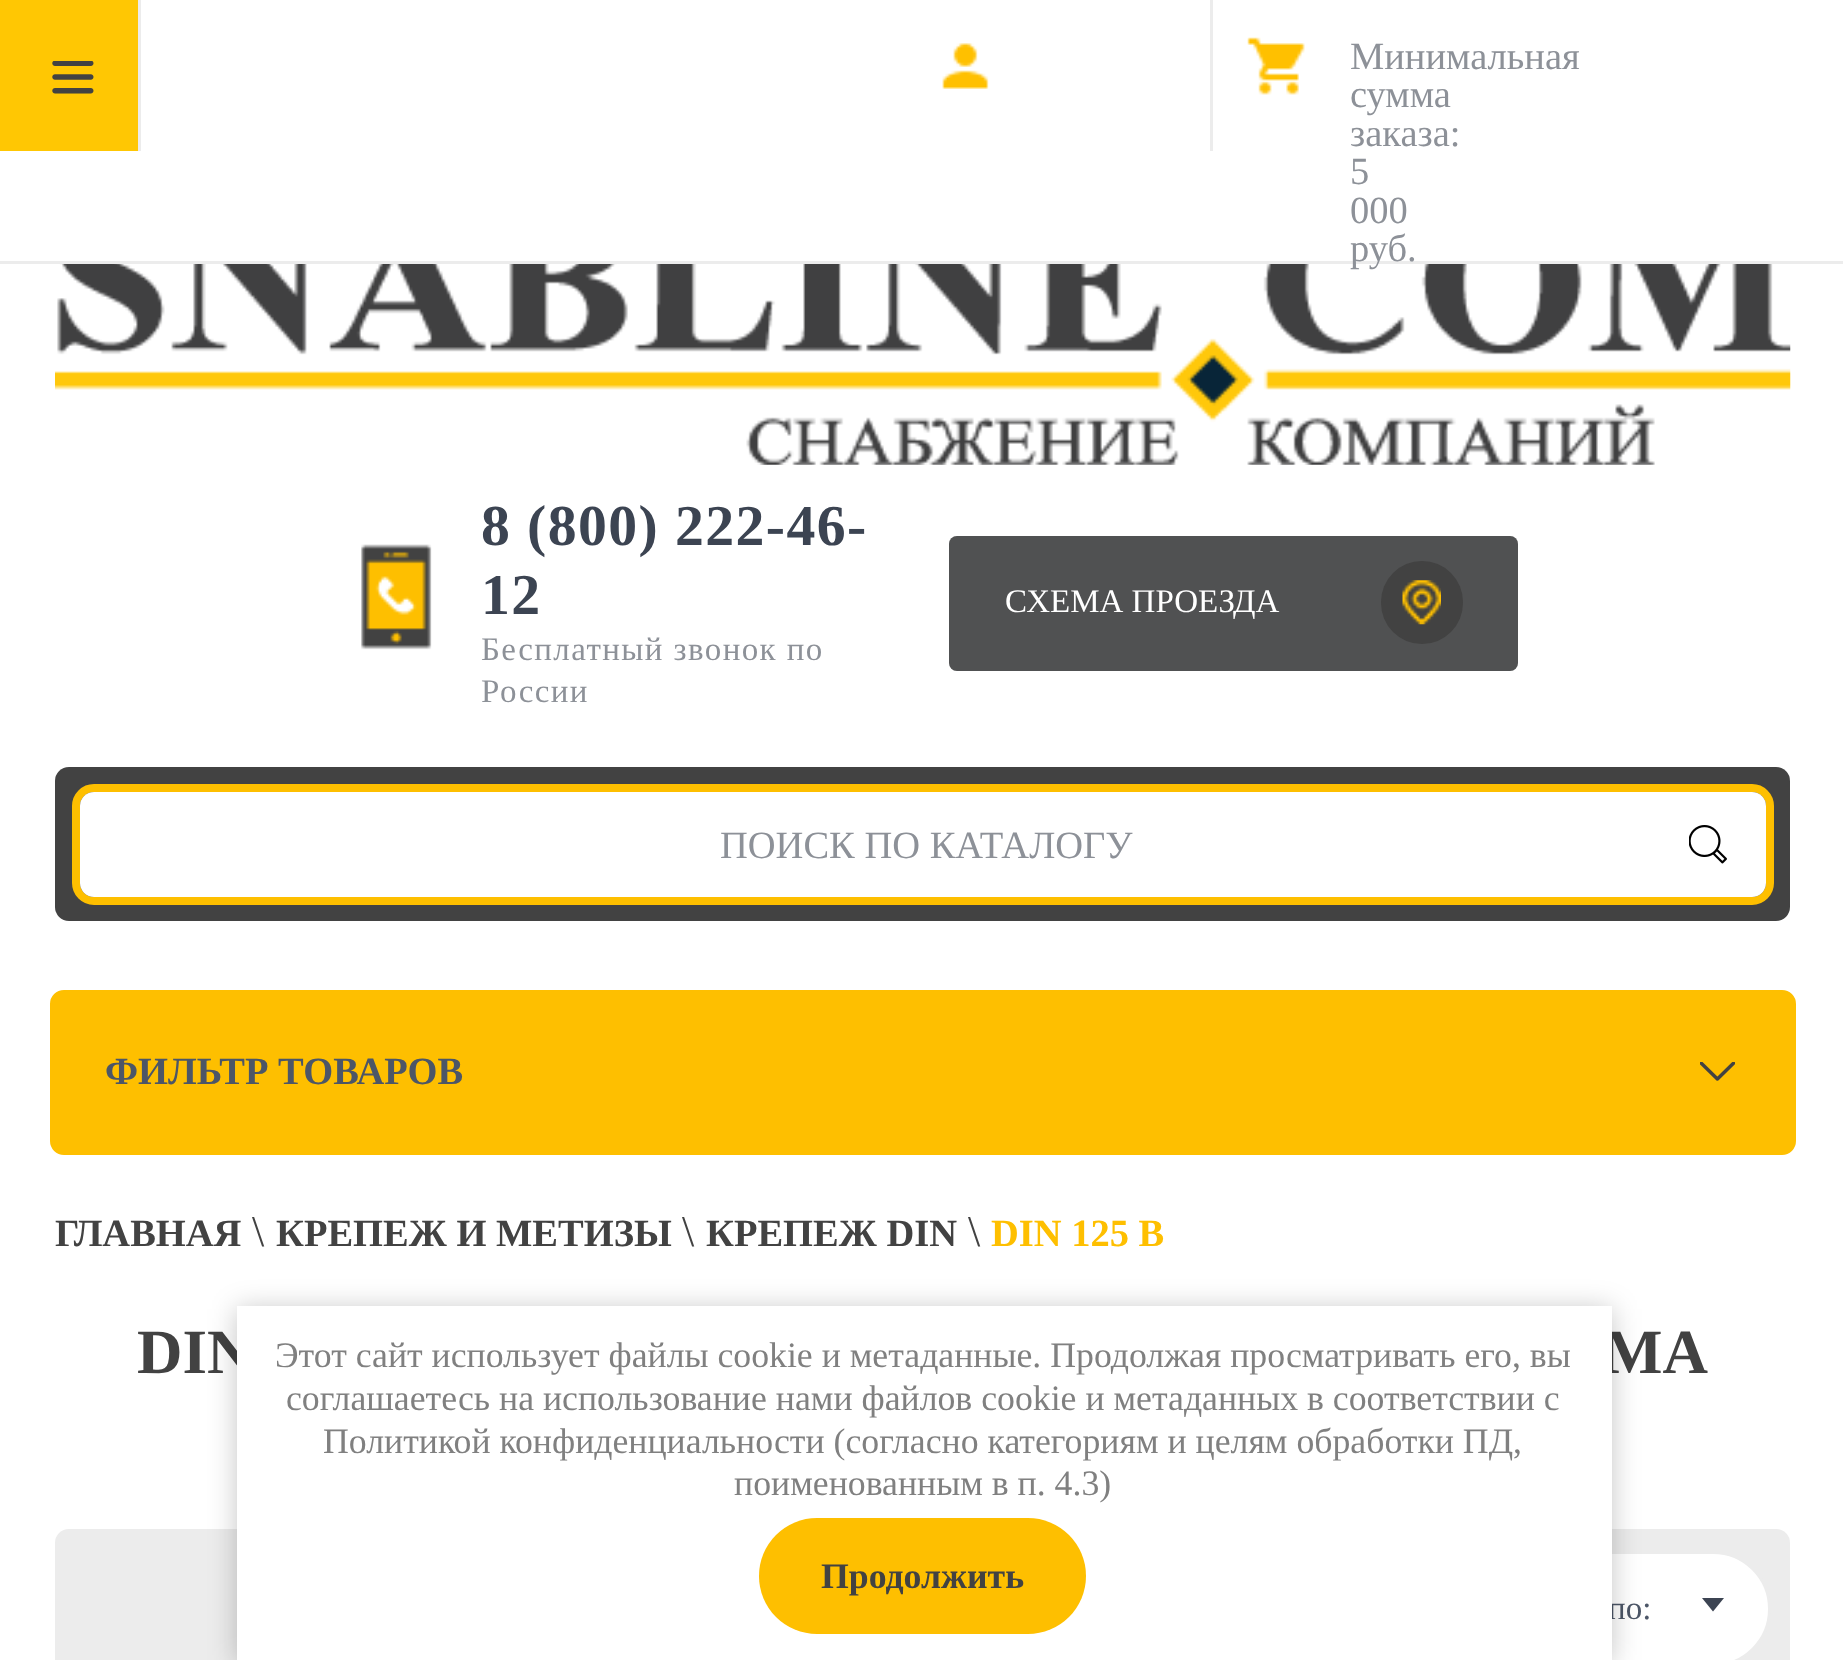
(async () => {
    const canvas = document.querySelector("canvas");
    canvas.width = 1843;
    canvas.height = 1660;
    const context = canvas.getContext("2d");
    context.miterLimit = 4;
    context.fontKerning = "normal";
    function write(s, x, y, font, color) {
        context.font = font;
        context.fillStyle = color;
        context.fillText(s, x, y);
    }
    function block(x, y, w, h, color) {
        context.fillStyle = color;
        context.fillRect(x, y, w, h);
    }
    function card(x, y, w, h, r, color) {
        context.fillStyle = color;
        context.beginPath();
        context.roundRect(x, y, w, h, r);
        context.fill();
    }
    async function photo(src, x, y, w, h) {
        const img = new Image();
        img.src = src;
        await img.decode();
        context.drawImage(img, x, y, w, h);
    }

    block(0, 0, 1843, 1660, "rgb(255, 255, 255)");
    block(0, 261, 1843, 3, "rgb(236, 236, 236)");
    block(0, 0, 138, 151, "rgb(255, 199, 3)");
    await photo("media/1.png", 52, 61, 42, 33);
    block(138, 0, 3, 151, "rgb(236, 236, 236)");
    block(1210, 0, 3, 151, "rgb(236, 236, 236)");
    await photo("media/2.png", 942, 43, 47, 46);
    await photo("media/3.png", 1247, 37, 58, 58);
    write("Минимальная", 1350, 69, "38.5px Liberation Serif", "rgb(141, 145, 152)");
    write("сумма", 1350, 107, "38.5px Liberation Serif", "rgb(141, 145, 152)");
    write("заказа:", 1350, 146, "38.5px Liberation Serif", "rgb(141, 145, 152)");
    write("5", 1350, 184, "38.5px Liberation Serif", "rgb(141, 145, 152)");
    write("000", 1350, 223, "38.5px Liberation Serif", "rgb(141, 145, 152)");
    await photo("media/4.png", 55, 264, 1736, 201);
    write("руб.", 1350, 261, "38.5px Liberation Serif", "rgb(141, 145, 152)");
    await photo("media/5.png", 361, 544, 71, 106);
    context.letterSpacing = "1.4px";
    write("8 (800) 222-46-", 481, 545, "bold 57.75px Liberation Serif", "rgb(60, 68, 82)");
    write("12", 481, 614, "bold 57.75px Liberation Serif", "rgb(60, 68, 82)");
    write("Бесплатный звонок по", 481, 660, "33px Liberation Serif", "rgb(141, 145, 152)");
    write("России", 481, 702, "33px Liberation Serif", "rgb(141, 145, 152)");
    card(949, 536, 569, 135, 8, "rgb(66, 66, 66)");
    card(949, 536, 569, 135, 8, "rgba(141, 145, 152, 0.2)");
    context.letterSpacing = "0px";
    write("СХЕМА ПРОЕЗДА", 1005, 612, "33px Liberation Serif", "rgb(255, 255, 255)");
    card(1381, 561, 82, 83, 41, "rgb(66, 66, 66)");
    await photo("media/6.png", 1402, 580, 39, 45);
    card(55, 767, 1735, 154, 14, "rgb(66, 66, 66)");
    context.beginPath();
    context.roundRect(76, 788, 1694, 113, 18);
    context.strokeStyle = "rgb(254, 191, 0)";
    context.lineWidth = 8;
    context.stroke();
    card(80, 792, 1686, 105, 14, "rgb(255, 255, 255)");
    write("ПОИСК ПО КАТАЛОГУ", 720, 858, "38.5px Liberation Serif", "rgb(141, 145, 152)");
    await photo("media/7.png", 1689, 825, 38, 39);
    context.beginPath();
    context.roundRect(53, 993, 1740, 159, 11);
    context.lineWidth = 6;
    context.stroke();
    block(56, 996, 1734, 153, "rgb(254, 191, 0)");
    write("ФИЛЬТР ТОВАРОВ", 105, 1084, "bold 38.5px Liberation Serif", "rgb(76, 86, 103)");
    await photo("media/8.png", 1700, 1062, 35, 19);
    write("ГЛАВНАЯ", 55, 1246, "bold 38.5px Liberation Serif", "rgb(66, 66, 66)");
    write("\\", 252, 1246, "44px Liberation Serif", "rgb(66, 66, 66)");
    write("КРЕПЕЖ И МЕТИЗЫ", 276, 1246, "bold 38.5px Liberation Serif", "rgb(66, 66, 66)");
    write("\\", 682, 1246, "44px Liberation Serif", "rgb(66, 66, 66)");
    write("КРЕПЕЖ DIN", 706, 1246, "bold 38.5px Liberation Serif", "rgb(66, 66, 66)");
    write("\\", 968, 1246, "44px Liberation Serif", "rgb(66, 66, 66)");
    write("DIN 125 B", 991, 1246, "bold 38.5px Liberation Serif", "rgb(254, 191, 0)");
    write("DIN", 137, 1373, "bold 63px Liberation Serif", "rgb(66, 66, 66)");
    write("МА", 1603, 1373, "bold 63px Liberation Serif", "rgb(66, 66, 66)");
    card(55, 1529, 1735, 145, 14, "rgb(236, 236, 236)");
    context.fillStyle = "rgb(255, 255, 255)";
    context.beginPath();
    context.roundRect(1360.5, 1552.5, 409, 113, 56.5);
    context.fill();
    context.strokeStyle = "rgb(236, 236, 236)";
    context.lineWidth = 3;
    context.stroke();
    write("по:", 1608, 1619, "33px Liberation Serif", "rgb(76, 86, 103)");
    context.fillStyle = "rgb(60, 68, 82)";
    context.beginPath();
    context.moveTo(1702, 1598);
    context.lineTo(1724, 1598);
    context.lineTo(1713, 1611.5);
    context.closePath();
    context.fill();
    context.fillStyle = "rgba(0, 0, 0, 0.23)";
    context.filter = "blur(14px)";
    context.beginPath();
    context.rect(237, 1309, 1375, 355);
    context.fill();
    context.filter = "none";
    block(237, 1306, 1375, 354, "rgb(255, 255, 255)");
    write("Этот сайт использует файлы cookie и метаданные. Продолжая просматривать его, вы", 275, 1367, "35.75px Liberation Serif", "rgb(128, 128, 128)");
    write("соглашаетесь на использование нами файлов cookie и метаданных в соответствии с", 286, 1410, "35.75px Liberation Serif", "rgb(128, 128, 128)");
    write("Политикой конфиденциальности (согласно категориям и целям обработки ПД,", 323, 1453, "35.75px Liberation Serif", "rgb(128, 128, 128)");
    write("поименованным в п. 4.3)", 734, 1495, "35.75px Liberation Serif", "rgb(128, 128, 128)");
    card(759, 1518, 327, 116, 58, "rgb(254, 191, 0)");
    write("Продолжить", 821, 1588, "bold 35.75px Liberation Serif", "rgb(66, 66, 66)");
})();
